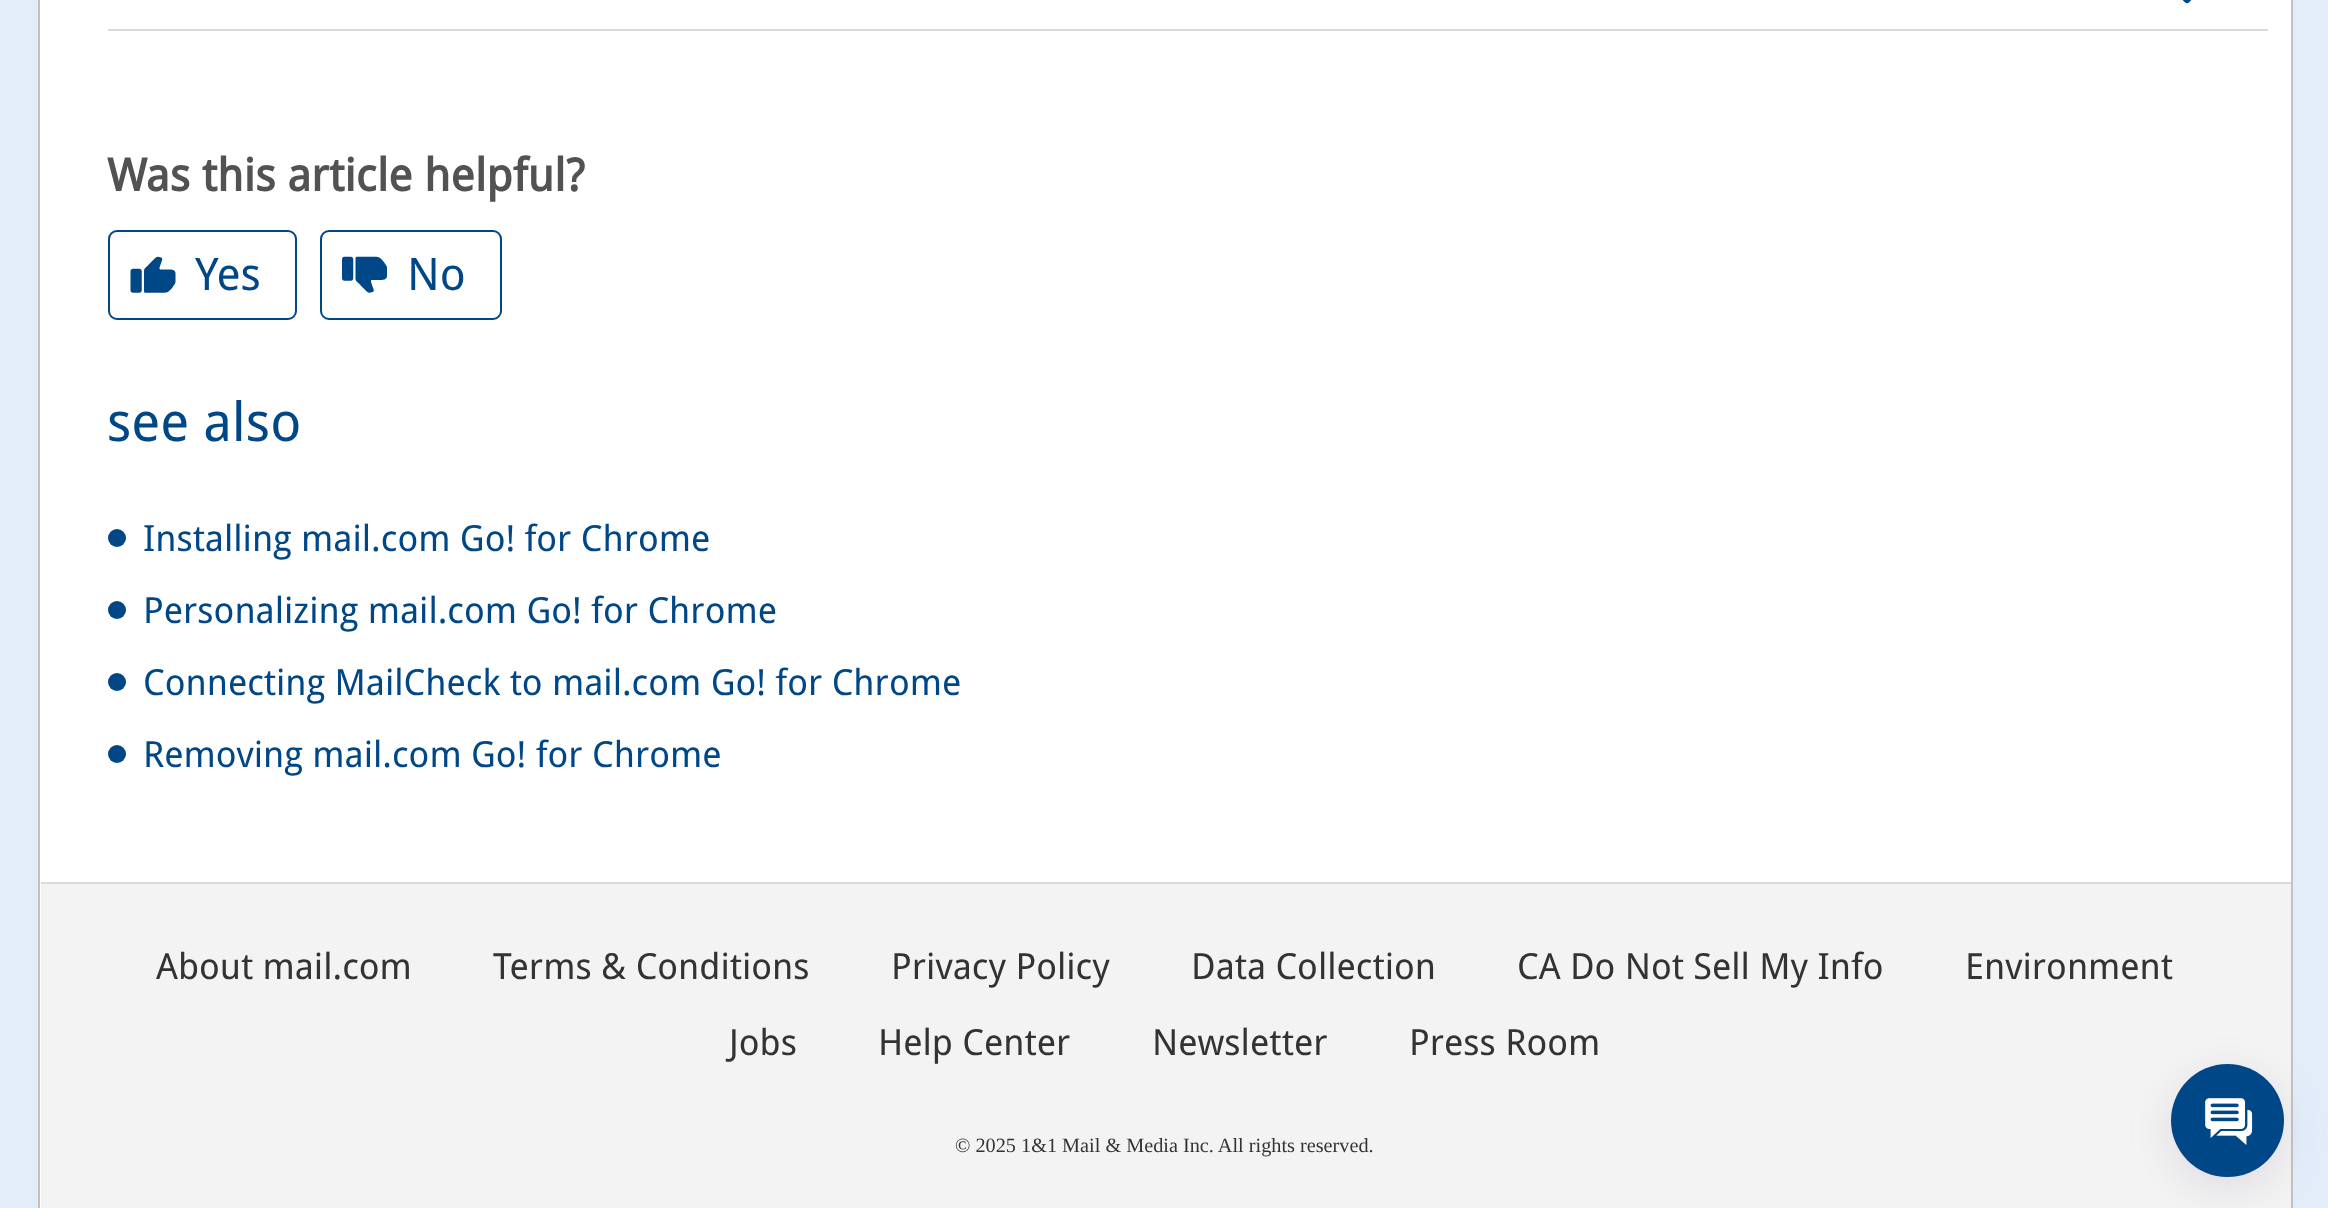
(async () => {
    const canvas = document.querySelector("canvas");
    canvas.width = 2328;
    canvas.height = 1208;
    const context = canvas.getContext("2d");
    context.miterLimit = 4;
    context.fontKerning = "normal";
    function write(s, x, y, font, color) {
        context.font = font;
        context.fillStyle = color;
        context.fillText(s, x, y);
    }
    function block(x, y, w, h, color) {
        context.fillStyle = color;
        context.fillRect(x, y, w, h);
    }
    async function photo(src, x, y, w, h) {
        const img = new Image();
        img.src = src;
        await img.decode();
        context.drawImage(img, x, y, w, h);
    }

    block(0, 0, 2328, 1208, "rgb(227, 237, 250)");
    block(40, 0, 2251, 1208, "rgb(255, 255, 255)");
    block(2291, 0, 2, 1208, "rgb(194, 194, 194)");
    block(38, 0, 2, 1208, "rgb(194, 194, 194)");
    block(108, 29, 2160, 2, "rgb(218, 218, 218)");
    await photo("media/1.png", 2182, 0, 10, 4);
    write("Was this article helpful?", 107, 191, "bold 45px Droid Sans", "rgb(82, 82, 82)");
    context.beginPath();
    context.roundRect(109, 231, 187, 88, 8);
    context.strokeStyle = "rgb(0, 71, 136)";
    context.lineWidth = 2;
    context.stroke();
    await photo("media/2.png", 130, 256, 46, 37);
    write("Yes", 195, 290, "45px Droid Sans", "rgb(0, 71, 136)");
    context.beginPath();
    context.roundRect(321, 231, 180, 88, 8);
    context.stroke();
    await photo("media/3.png", 342, 256, 45, 37);
    write("No", 407, 290, "45px Droid Sans", "rgb(0, 71, 136)");
    write("see also", 107, 441, "54px Droid Sans", "rgb(0, 71, 136)");
    context.beginPath();
    context.arc(117, 538, 9, 0, Math.PI * 2);
    context.fill();
    write("Installing mail.com Go! for Chrome", 143, 551, "36px Droid Sans", "rgb(0, 71, 136)");
    context.beginPath();
    context.arc(117, 610, 9, 0, Math.PI * 2);
    context.fill();
    write("Personalizing mail.com Go! for Chrome", 143, 623, "36px Droid Sans", "rgb(0, 71, 136)");
    context.beginPath();
    context.arc(117, 682, 9, 0, Math.PI * 2);
    context.fill();
    write("Connecting MailCheck to mail.com Go! for Chrome", 143, 695, "36px Droid Sans", "rgb(0, 71, 136)");
    context.beginPath();
    context.arc(117, 754, 9, 0, Math.PI * 2);
    context.fill();
    write("Removing mail.com Go! for Chrome", 143, 767, "36px Droid Sans", "rgb(0, 71, 136)");
    block(41, 882, 2250, 2, "rgb(218, 218, 218)");
    block(41, 884, 2250, 324, "rgb(243, 243, 243)");
    write("About mail.com", 156, 979, "36px Droid Sans", "rgb(51, 51, 51)");
    write("Terms & Conditions", 493, 979, "36px Droid Sans", "rgb(51, 51, 51)");
    write("Privacy Policy", 891, 979, "36px Droid Sans", "rgb(51, 51, 51)");
    write("Data Collection", 1191, 979, "36px Droid Sans", "rgb(51, 51, 51)");
    write("CA Do Not Sell My Info", 1517, 979, "36px Droid Sans", "rgb(51, 51, 51)");
    write("Environment", 1965, 979, "36px Droid Sans", "rgb(51, 51, 51)");
    write("Jobs", 729, 1055, "36px Droid Sans", "rgb(51, 51, 51)");
    write("Help Center", 878, 1055, "36px Droid Sans", "rgb(51, 51, 51)");
    write("Newsletter", 1152, 1055, "36px Droid Sans", "rgb(51, 51, 51)");
    write("Press Room", 1409, 1055, "36px Droid Sans", "rgb(51, 51, 51)");
    write("© 2025 1&1 Mail & Media Inc. All rights reserved.", 955, 1152, "20.25px Liberation Serif", "rgb(51, 51, 51)");
    context.fillStyle = "rgba(151, 124, 156, 0.2)";
    context.filter = "blur(20px)";
    context.beginPath();
    context.roundRect(2171, 1076, 113, 112, 56);
    context.fill();
    context.filter = "none";
    context.fillStyle = "rgb(0, 71, 136)";
    context.beginPath();
    context.arc(2227.5, 1120.5, 56.5, 0, Math.PI * 2);
    context.fill();
    await photo("media/4.png", 2205, 1098, 48, 47);
})();
